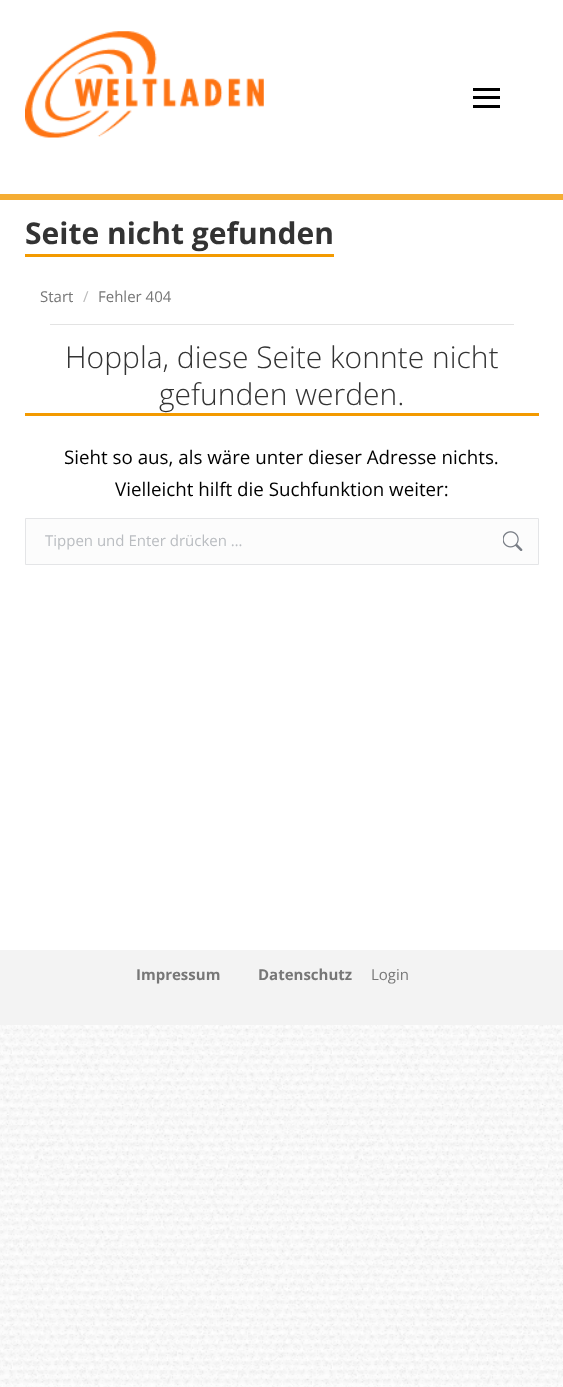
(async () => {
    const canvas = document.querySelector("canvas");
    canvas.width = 563;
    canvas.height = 1387;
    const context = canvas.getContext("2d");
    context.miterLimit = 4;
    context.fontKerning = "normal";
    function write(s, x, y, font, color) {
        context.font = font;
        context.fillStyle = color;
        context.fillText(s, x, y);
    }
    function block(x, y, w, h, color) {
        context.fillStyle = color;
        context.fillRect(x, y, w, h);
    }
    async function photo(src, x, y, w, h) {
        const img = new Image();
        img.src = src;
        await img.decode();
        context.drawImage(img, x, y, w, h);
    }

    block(0, 0, 563, 1387, "rgb(255, 255, 255)");
    await photo("media/1.png", 0, 1025, 563, 362);
    block(0, 194, 563, 6, "rgb(245, 173, 51)");
    await photo("media/2.png", 25, 31, 239, 107);
    block(473, 88, 27, 3, "rgb(0, 0, 0)");
    block(473, 96, 27, 3, "rgb(0, 0, 0)");
    block(473, 105, 27, 3, "rgb(0, 0, 0)");
    block(25, 254, 309, 3, "rgb(243, 154, 0)");
    write("Seite nicht gefunden", 25, 244, "bold 30px Open Sans", "rgb(51, 51, 51)");
    write("Start", 40, 302, "15px Open Sans", "rgb(119, 119, 119)");
    write("/", 83, 302, "15px Open Sans", "rgb(187, 187, 187)");
    write("Fehler 404", 98, 302, "15px Open Sans", "rgb(119, 119, 119)");
    block(50, 324, 464, 1, "rgb(227, 227, 227)");
    block(25, 413, 514, 3, "rgb(243, 154, 0)");
    write("Hoppla, diese Seite konnte nicht", 65, 368, "300 30px Open Sans", "rgb(51, 51, 51)");
    write("gefunden werden.", 159, 405, "300 30px Open Sans", "rgb(51, 51, 51)");
    write("Sieht so aus, als wäre unter dieser Adresse nichts.", 64, 464, "18.75px Open Sans", "rgb(0, 0, 0)");
    write("Vielleicht hilft die Suchfunktion weiter:", 115, 496, "18.75px Open Sans", "rgb(0, 0, 0)");
    context.fillStyle = "rgb(252, 252, 252)";
    context.beginPath();
    context.rect(25.5, 518.5, 513, 46);
    context.fill();
    context.strokeStyle = "rgb(228, 229, 231)";
    context.stroke();
    write("Tippen und Enter drücken …", 45, 546, "15px Open Sans", "rgb(186, 189, 193)");
    await photo("media/3.png", 503, 531, 20, 20);
    block(0, 950, 563, 75, "rgb(243, 243, 243)");
    write("Impressum", 136, 980, "bold 15px Open Sans", "rgb(119, 119, 119)");
    write("Datenschutz", 258, 980, "bold 15px Open Sans", "rgb(119, 119, 119)");
    write("Login", 371, 980, "15px Open Sans", "rgb(119, 119, 119)");
})();
